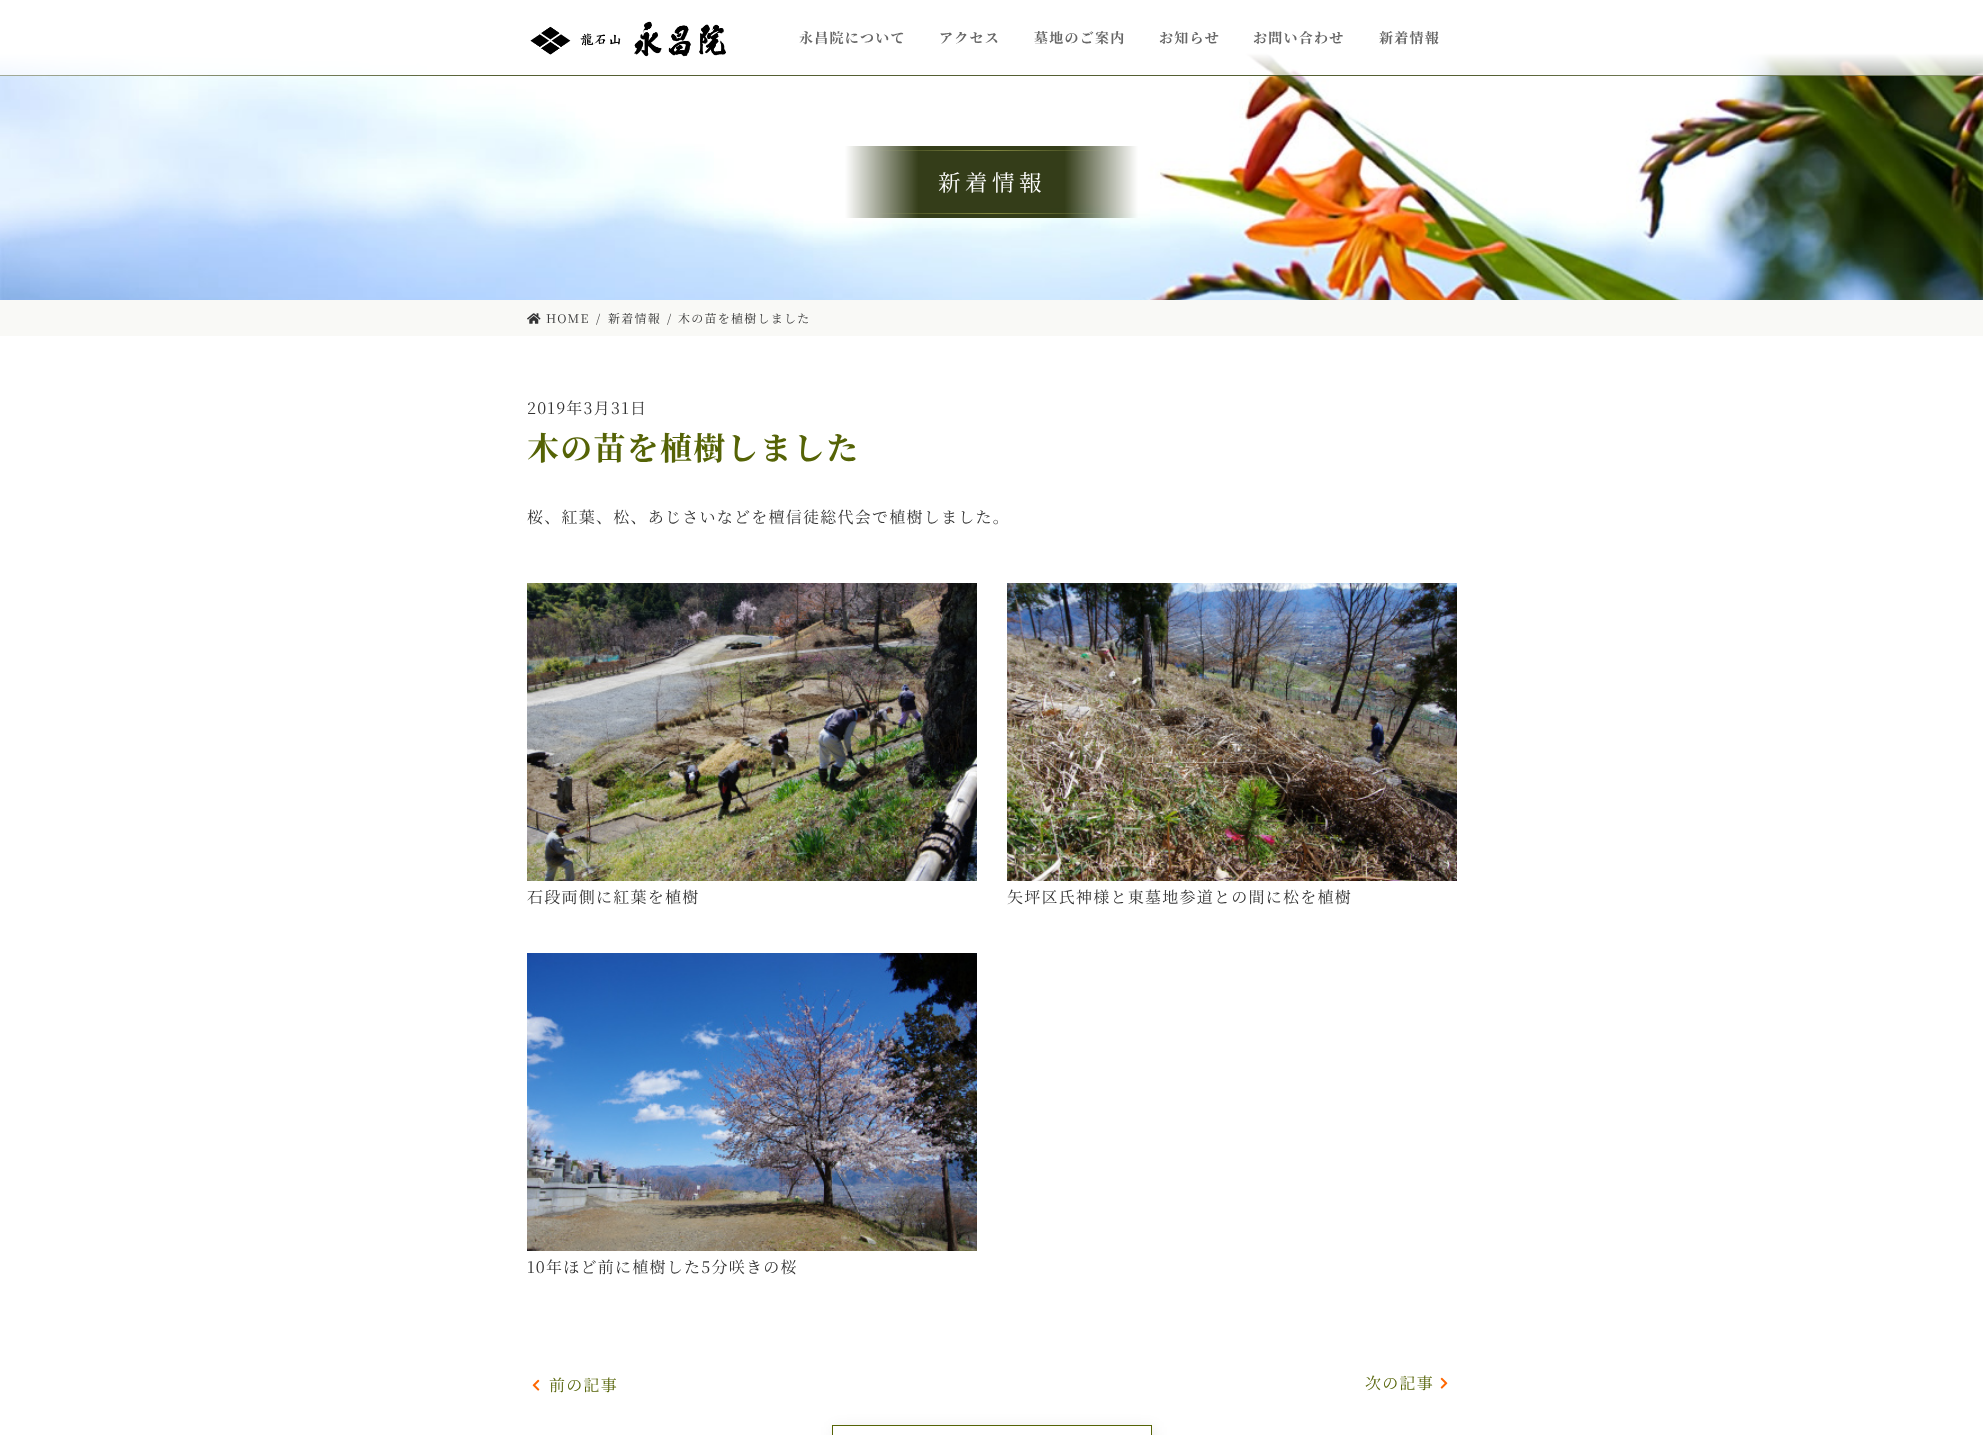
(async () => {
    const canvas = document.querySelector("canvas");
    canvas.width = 1983;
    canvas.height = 1435;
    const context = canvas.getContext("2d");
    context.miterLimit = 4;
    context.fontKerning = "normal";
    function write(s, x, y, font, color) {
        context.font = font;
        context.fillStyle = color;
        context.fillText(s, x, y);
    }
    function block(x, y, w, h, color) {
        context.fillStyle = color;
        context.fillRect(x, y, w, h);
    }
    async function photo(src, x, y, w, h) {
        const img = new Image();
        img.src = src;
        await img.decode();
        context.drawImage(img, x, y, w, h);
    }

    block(0, 0, 1983, 1435, "rgb(255, 255, 255)");
    await photo("media/2.png", 0, 0, 1983, 300);
    await photo("media/1.png", 530, 21, 196, 36);
    context.letterSpacing = "1.25px";
    write("永昌院について", 799, 43, "bold 14px Noto Serif JP", "rgb(102, 102, 102)");
    write("アクセス", 939, 43, "bold 14px Noto Serif JP", "rgb(102, 102, 102)");
    write("墓地のご案内", 1034, 43, "bold 14px Noto Serif JP", "rgb(102, 102, 102)");
    write("お知らせ", 1159, 43, "bold 14px Noto Serif JP", "rgb(102, 102, 102)");
    write("お問い合わせ", 1253, 43, "bold 14px Noto Serif JP", "rgb(102, 102, 102)");
    write("新着情報", 1379, 43, "bold 14px Noto Serif JP", "rgb(102, 102, 102)");
    context.letterSpacing = "4.5px";
    write("新着情報", 938, 191, "22.5px Noto Serif JP", "rgb(255, 255, 255)");
    block(0, 300, 1983, 36, "rgb(249, 249, 246)");
    await photo("media/3.png", 527, 313, 14, 11);
    context.letterSpacing = "1.25px";
    write("HOME", 546, 323, "12px Noto Serif JP", "rgb(51, 51, 51)");
    write("/", 596, 323, "12px Noto Serif JP", "rgb(51, 51, 51)");
    write("新着情報", 608, 323, "12px Noto Serif JP", "rgb(51, 51, 51)");
    write("/", 667, 323, "12px Noto Serif JP", "rgb(51, 51, 51)");
    write("木の苗を植樹しました", 678, 323, "12px Noto Serif JP", "rgb(51, 51, 51)");
    write("2019年3月31日", 527, 414, "16px Noto Serif JP", "rgb(51, 51, 51)");
    write("木の苗を植樹しました", 527, 460, "bold 32px Noto Serif JP", "rgb(85, 99, 6)");
    write("桜、紅葉、松、あじさいなどを檀信徒総代会で植樹しました。", 527, 523, "16px Noto Serif JP", "rgb(51, 51, 51)");
    await photo("media/4.png", 527, 583, 450, 298);
    write("石段両側に紅葉を植樹", 527, 903, "16px Noto Serif JP", "rgb(51, 51, 51)");
    await photo("media/5.png", 1007, 583, 450, 298);
    write("矢坪区氏神様と東墓地参道との間に松を植樹", 1007, 903, "16px Noto Serif JP", "rgb(51, 51, 51)");
    await photo("media/6.png", 527, 953, 450, 298);
    write("10年ほど前に植樹した5分咲きの桜", 527, 1273, "16px Noto Serif JP", "rgb(51, 51, 51)");
    await photo("media/7.png", 532, 1379, 8, 12);
    write("前の記事", 549, 1391, "16px Noto Serif JP", "rgb(85, 99, 6)");
    write("次の記事", 1365, 1389, "16px Noto Serif JP", "rgb(85, 99, 6)");
    await photo("media/8.png", 1440, 1377, 8, 12);
    context.save();
    context.beginPath();
    context.moveTo(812, 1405);
    context.lineTo(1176, 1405);
    context.lineTo(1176, 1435);
    context.lineTo(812, 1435);
    context.closePath();
    context.moveTo(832, 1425);
    context.lineTo(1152, 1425);
    context.lineTo(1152, 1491);
    context.lineTo(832, 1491);
    context.closePath();
    context.clip("evenodd");
    context.fillStyle = "rgba(0, 0, 0, 0.08)";
    context.filter = "blur(7px)";
    context.beginPath();
    context.rect(834, 1427, 320, 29);
    context.fill();
    context.filter = "none";
    context.restore();
    context.strokeStyle = "rgb(85, 99, 6)";
    context.strokeRect(832.5, 1425.5, 319, 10);
})();
